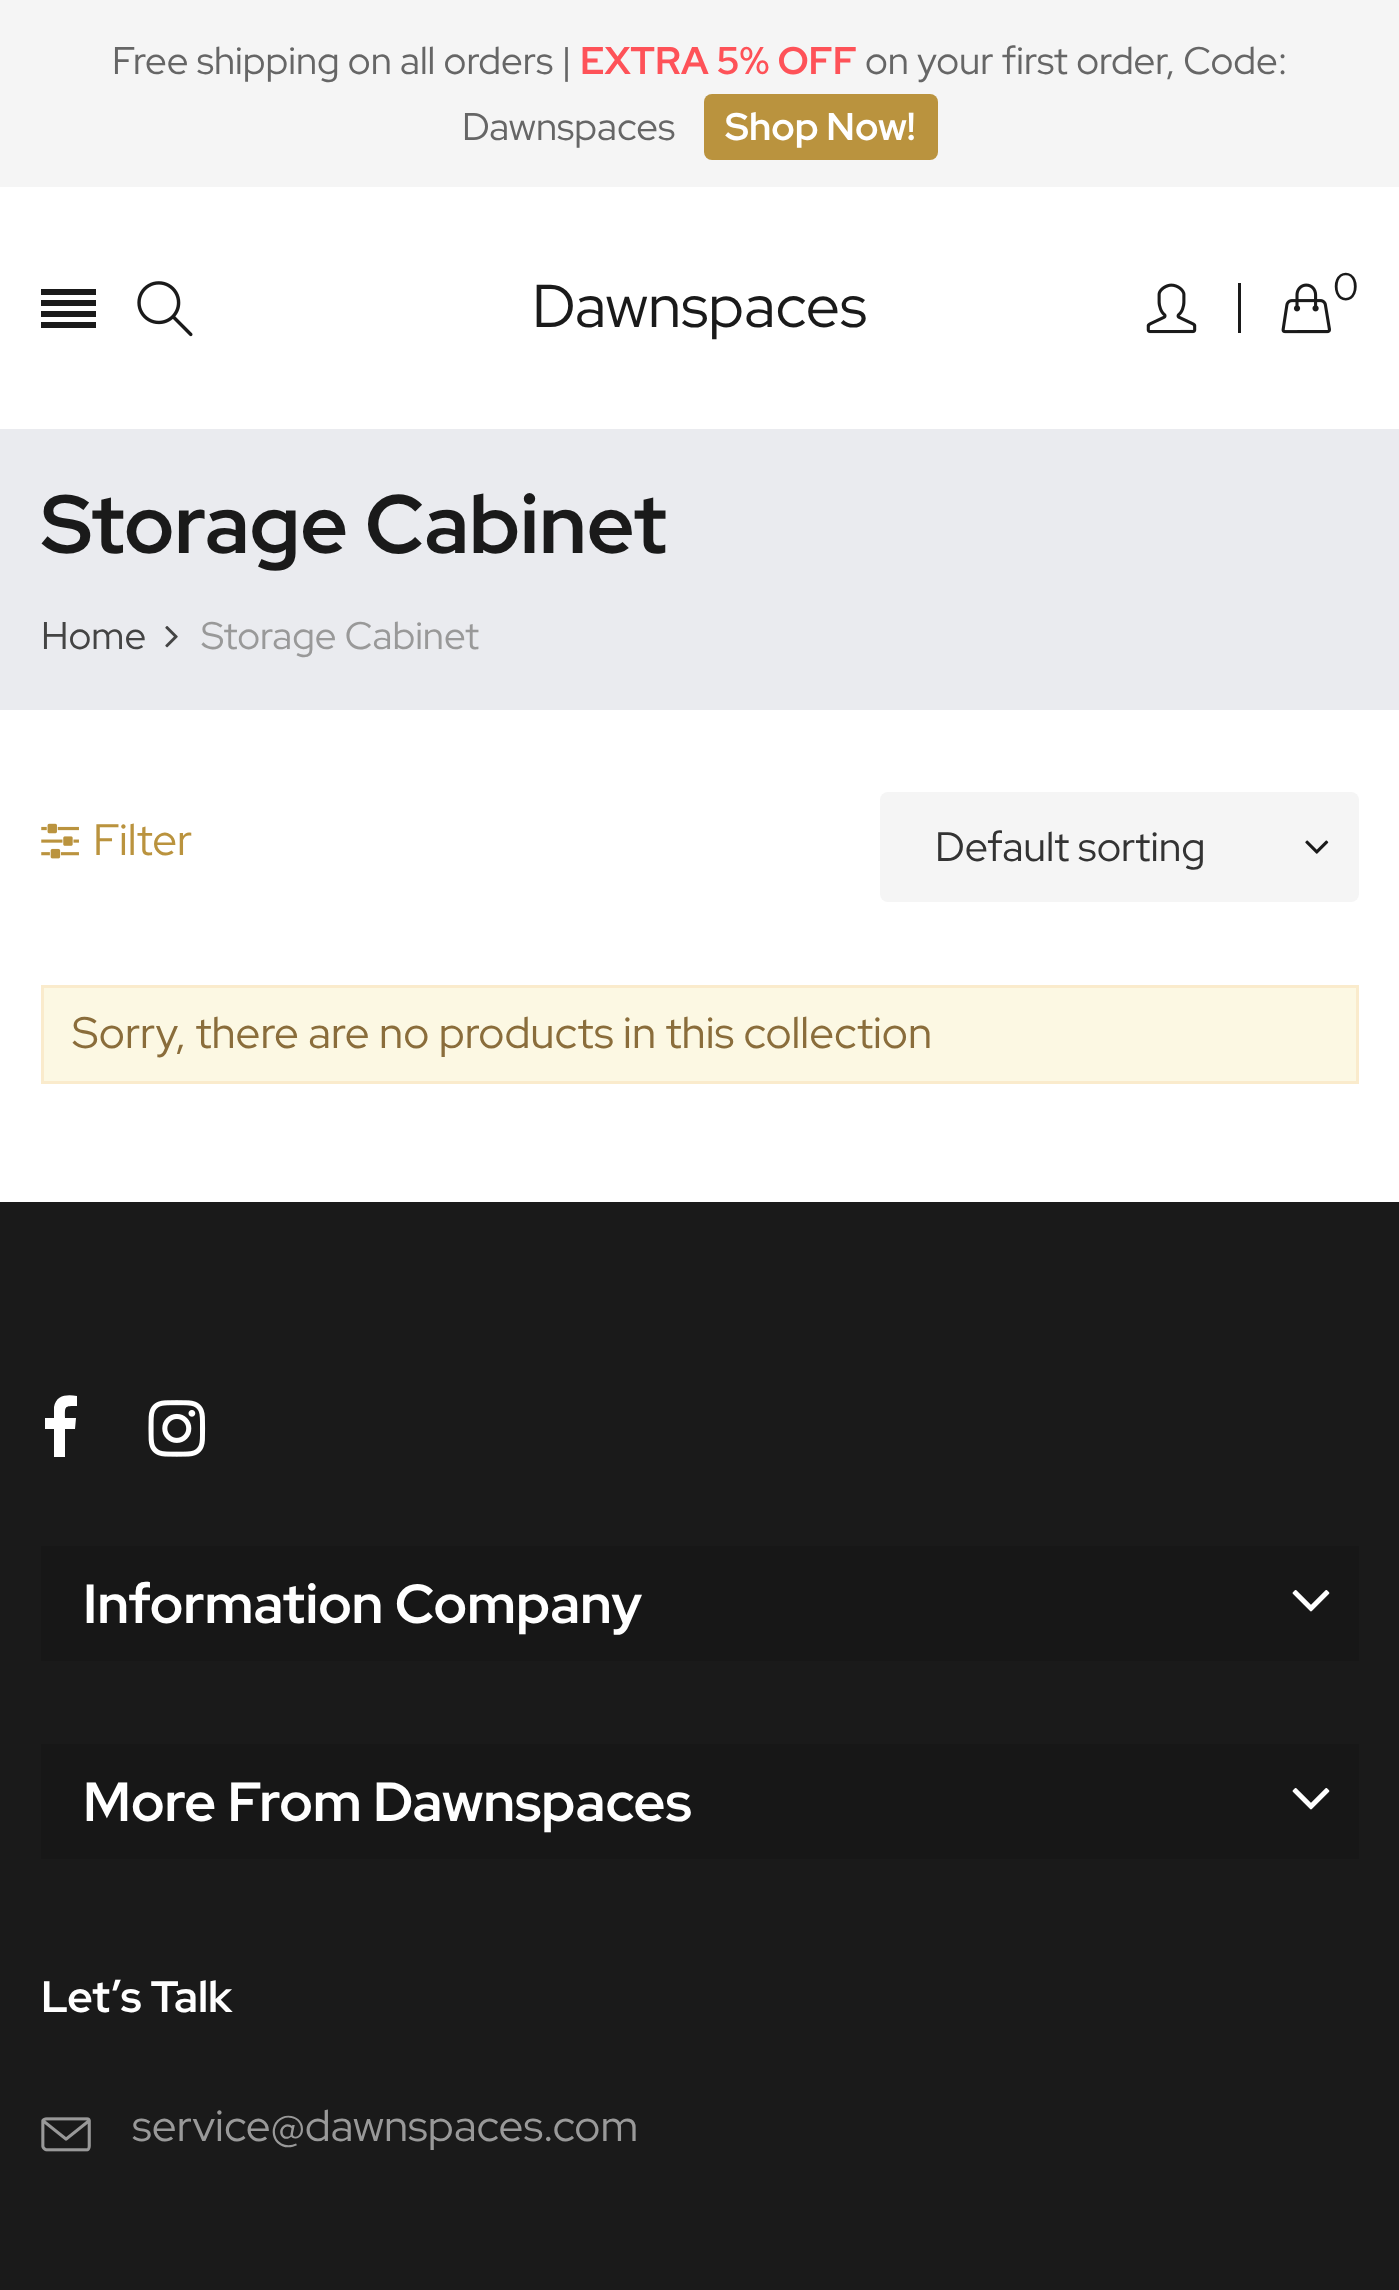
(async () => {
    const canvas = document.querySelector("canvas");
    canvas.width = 1399;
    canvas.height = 2290;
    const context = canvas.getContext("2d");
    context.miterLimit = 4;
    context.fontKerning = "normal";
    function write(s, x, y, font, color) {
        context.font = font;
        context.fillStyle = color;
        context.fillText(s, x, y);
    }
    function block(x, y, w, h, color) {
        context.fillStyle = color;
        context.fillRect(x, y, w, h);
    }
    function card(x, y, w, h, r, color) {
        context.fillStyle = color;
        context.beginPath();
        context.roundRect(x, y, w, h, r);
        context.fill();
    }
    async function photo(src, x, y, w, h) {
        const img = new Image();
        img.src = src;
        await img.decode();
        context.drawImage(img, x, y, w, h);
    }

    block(0, 0, 1399, 2290, "rgb(255, 255, 255)");
    block(0, 0, 1399, 187, "rgb(245, 245, 245)");
    write("Free shipping on all orders |", 112, 74, "38.5px Red Hat Display", "rgb(102, 102, 102)");
    write("EXTRA 5% OFF", 580, 74, "bold 38.5px Red Hat Display", "rgb(254, 82, 88)");
    write("on your first order, Code:", 865, 74, "38.5px Red Hat Display", "rgb(102, 102, 102)");
    write("Dawnspaces", 462, 140, "38.5px Red Hat Display", "rgb(102, 102, 102)");
    card(704, 94, 234, 66, 8, "rgb(186, 147, 62)");
    write("Shop Now!", 725, 140, "bold 38.5px Red Hat Display", "rgb(255, 255, 255)");
    block(41, 289, 55, 6, "rgb(26, 26, 26)");
    block(41, 300, 55, 6, "rgb(26, 26, 26)");
    block(41, 311, 55, 6, "rgb(26, 26, 26)");
    block(41, 322, 55, 6, "rgb(26, 26, 26)");
    await photo("media/1.png", 137, 281, 56, 56);
    write("Dawnspaces", 532, 327, "60.5px Red Hat Display", "rgb(26, 26, 26)");
    block(1238, 283, 3, 50, "rgb(26, 26, 26)");
    await photo("media/2.png", 1146, 283, 51, 51);
    await photo("media/3.png", 1281, 283, 50, 51);
    write("0", 1333, 300, "38.5px Red Hat Display", "rgb(26, 26, 26)");
    block(0, 429, 1399, 281, "rgb(234, 235, 239)");
    write("Storage Cabinet", 41, 553, "bold 82.5px Red Hat Display", "rgb(26, 26, 26)");
    write("Home", 41, 649, "38.5px Red Hat Display", "rgb(68, 68, 68)");
    await photo("media/4.png", 165, 626, 13, 22);
    write("Storage Cabinet", 201, 649, "38.5px Red Hat Display", "rgb(153, 153, 153)");
    await photo("media/5.png", 41, 823, 38, 36);
    write("Filter", 93, 855, "44px Red Hat Display", "rgb(186, 147, 62)");
    card(880, 792, 479, 110, 8, "rgb(245, 245, 245)");
    write("Default sorting", 935, 861, "41.25px Red Hat Display", "rgb(51, 51, 51)");
    await photo("media/6.png", 1305, 840, 24, 14);
    context.fillStyle = "rgb(252, 248, 227)";
    context.beginPath();
    context.rect(42.5, 986.5, 1315, 96);
    context.fill();
    context.strokeStyle = "rgb(250, 235, 204)";
    context.lineWidth = 3;
    context.stroke();
    write("Sorry, there are no products in this collection", 72, 1048, "44px Red Hat Display", "rgb(138, 109, 59)");
    block(0, 1202, 1399, 1088, "rgb(26, 26, 26)");
    context.fillStyle = "rgb(255, 255, 255)";
    context.beginPath();
    context.moveTo(77, 1396);
    context.lineTo(77, 1406);
    context.bezierCurveTo(64, 1406, 65, 1406, 65, 1418);
    context.lineTo(76, 1418);
    context.lineTo(75, 1429);
    context.lineTo(65, 1429);
    context.lineTo(65, 1457);
    context.lineTo(54, 1457);
    context.lineTo(54, 1429);
    context.lineTo(45, 1429);
    context.lineTo(45, 1418);
    context.lineTo(54, 1418);
    context.lineTo(54, 1407);
    context.bezierCurveTo(56, 1395, 67, 1394, 77, 1396);
    context.closePath();
    context.fill();
    await photo("media/7.png", 148, 1400, 58, 57);
    block(41, 1546, 1318, 115, "rgb(23, 23, 23)");
    write("Information Company", 83, 1623, "bold 55px Red Hat Display", "rgb(255, 255, 255)");
    await photo("media/8.png", 1292, 1590, 38, 22);
    block(41, 1744, 1318, 115, "rgb(23, 23, 23)");
    write("More From Dawnspaces", 83, 1821, "bold 55px Red Hat Display", "rgb(255, 255, 255)");
    await photo("media/8.png", 1292, 1788, 38, 22);
    write("Let’s Talk", 41, 2012, "bold 44px Red Hat Display", "rgb(255, 255, 255)");
    await photo("media/9.png", 41, 2117, 50, 35);
    write("service@dawnspaces.com", 132, 2141, "44px Red Hat Display", "rgb(153, 153, 153)");
})();
